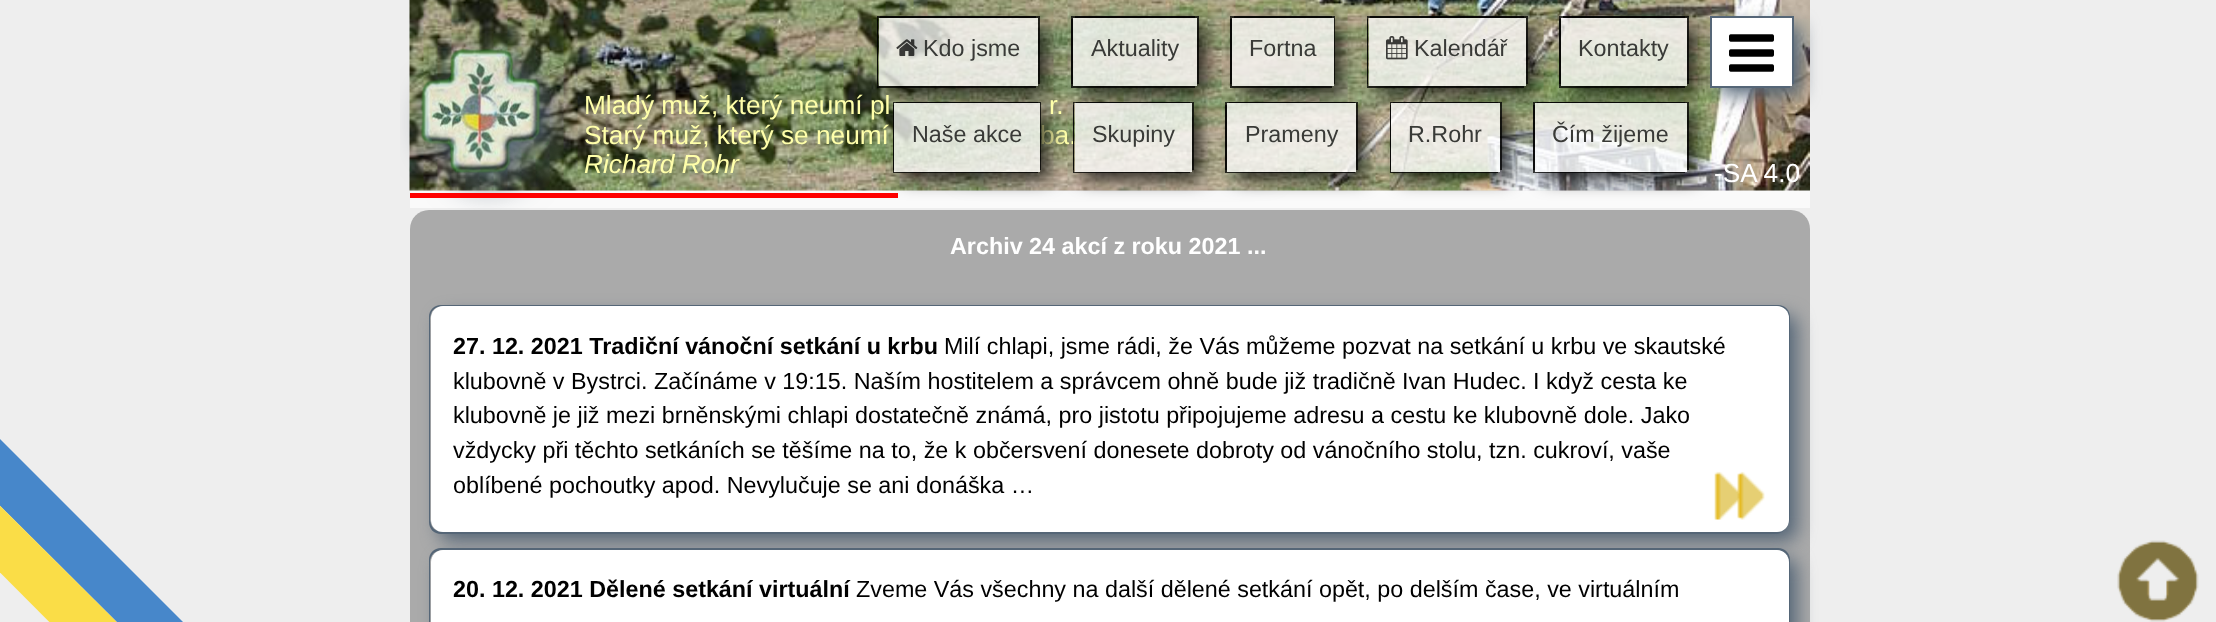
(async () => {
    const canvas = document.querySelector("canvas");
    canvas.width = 2216;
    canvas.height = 622;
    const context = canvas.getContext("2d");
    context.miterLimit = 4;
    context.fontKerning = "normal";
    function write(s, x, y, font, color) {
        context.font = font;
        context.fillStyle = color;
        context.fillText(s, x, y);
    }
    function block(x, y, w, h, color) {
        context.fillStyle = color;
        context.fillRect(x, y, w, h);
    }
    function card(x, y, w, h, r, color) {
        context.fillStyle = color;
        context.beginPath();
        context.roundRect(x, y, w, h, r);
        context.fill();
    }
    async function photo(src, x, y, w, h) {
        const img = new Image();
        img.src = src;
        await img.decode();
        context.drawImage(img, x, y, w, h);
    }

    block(0, 0, 2216, 622, "rgb(238, 238, 238)");
    context.fillStyle = "rgb(71, 135, 202)";
    context.beginPath();
    context.moveTo(-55, 384);
    context.lineTo(192, 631);
    context.lineTo(159, 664);
    context.lineTo(-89, 417);
    context.lineTo(-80, 408);
    context.closePath();
    context.fill();
    context.fillStyle = "rgb(250, 221, 71)";
    context.beginPath();
    context.moveTo(-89, 417);
    context.lineTo(159, 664);
    context.lineTo(125, 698);
    context.lineTo(-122, 450);
    context.closePath();
    context.fill();
    context.fillStyle = "rgb(85, 102, 119)";
    context.filter = "blur(9px)";
    context.beginPath();
    context.roundRect(959, 149, 317, 31, 9);
    context.fill();
    context.filter = "none";
    await photo("media/4.png", 409, 0, 1401, 191);
    context.save();
    context.beginPath();
    context.moveTo(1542, 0);
    context.lineTo(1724, 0);
    context.lineTo(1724, 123);
    context.lineTo(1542, 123);
    context.closePath();
    context.moveTo(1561, 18);
    context.lineTo(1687, 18);
    context.lineTo(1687, 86);
    context.lineTo(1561, 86);
    context.closePath();
    context.clip("evenodd");
    context.fillStyle = "rgba(0, 0, 0, 0.75)";
    context.filter = "blur(9px)";
    context.beginPath();
    context.rect(1570, 26, 126, 69);
    context.fill();
    context.filter = "none";
    context.restore();
    context.fillStyle = "rgba(0, 0, 0, 0.75)";
    context.beginPath();
    context.moveTo(1559, 16);
    context.lineTo(1559, 84);
    context.lineTo(1561, 84);
    context.lineTo(1561, 18);
    context.lineTo(1685, 18);
    context.lineTo(1685, 16);
    context.closePath();
    context.fill();
    context.beginPath();
    context.moveTo(1563, 16);
    context.lineTo(1563, 18);
    context.lineTo(1687, 18);
    context.lineTo(1687, 84);
    context.lineTo(1689, 84);
    context.lineTo(1689, 16);
    context.closePath();
    context.fill();
    context.beginPath();
    context.moveTo(1559, 19);
    context.lineTo(1559, 88);
    context.lineTo(1685, 88);
    context.lineTo(1685, 86);
    context.lineTo(1561, 86);
    context.lineTo(1561, 19);
    context.closePath();
    context.fill();
    block(1561, 18, 126, 68, "rgba(255, 255, 255, 0.75)");
    context.save();
    context.beginPath();
    context.moveTo(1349, 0);
    context.lineTo(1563, 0);
    context.lineTo(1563, 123);
    context.lineTo(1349, 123);
    context.closePath();
    context.moveTo(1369, 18);
    context.lineTo(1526, 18);
    context.lineTo(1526, 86);
    context.lineTo(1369, 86);
    context.closePath();
    context.clip("evenodd");
    context.fillStyle = "rgba(0, 0, 0, 0.75)";
    context.filter = "blur(9px)";
    context.beginPath();
    context.rect(1377, 26, 158, 69);
    context.fill();
    context.filter = "none";
    context.restore();
    context.fillStyle = "rgba(0, 0, 0, 0.75)";
    context.beginPath();
    context.moveTo(1367, 16);
    context.lineTo(1367, 84);
    context.lineTo(1368, 84);
    context.lineTo(1368, 18);
    context.lineTo(1524, 18);
    context.lineTo(1524, 16);
    context.closePath();
    context.fill();
    context.beginPath();
    context.moveTo(1370, 16);
    context.lineTo(1370, 18);
    context.lineTo(1526, 18);
    context.lineTo(1526, 84);
    context.lineTo(1528, 84);
    context.lineTo(1528, 16);
    context.closePath();
    context.fill();
    context.beginPath();
    context.moveTo(1367, 19);
    context.lineTo(1367, 88);
    context.lineTo(1524, 88);
    context.lineTo(1524, 86);
    context.lineTo(1368, 86);
    context.lineTo(1368, 19);
    context.closePath();
    context.fill();
    block(1369, 18, 157, 68, "rgba(255, 255, 255, 0.75)");
    context.save();
    context.beginPath();
    context.moveTo(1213, 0);
    context.lineTo(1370, 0);
    context.lineTo(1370, 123);
    context.lineTo(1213, 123);
    context.closePath();
    context.moveTo(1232, 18);
    context.lineTo(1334, 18);
    context.lineTo(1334, 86);
    context.lineTo(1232, 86);
    context.closePath();
    context.clip("evenodd");
    context.fillStyle = "rgba(0, 0, 0, 0.75)";
    context.filter = "blur(9px)";
    context.beginPath();
    context.rect(1241, 26, 101, 69);
    context.fill();
    context.filter = "none";
    context.restore();
    context.fillStyle = "rgba(0, 0, 0, 0.75)";
    context.beginPath();
    context.moveTo(1230, 16);
    context.lineTo(1230, 84);
    context.lineTo(1232, 84);
    context.lineTo(1232, 18);
    context.lineTo(1332, 18);
    context.lineTo(1332, 16);
    context.closePath();
    context.fill();
    context.beginPath();
    context.moveTo(1234, 16);
    context.lineTo(1234, 18);
    context.lineTo(1334, 18);
    context.lineTo(1334, 84);
    context.lineTo(1335, 84);
    context.lineTo(1335, 16);
    context.closePath();
    context.fill();
    context.beginPath();
    context.moveTo(1230, 19);
    context.lineTo(1230, 88);
    context.lineTo(1332, 88);
    context.lineTo(1332, 86);
    context.lineTo(1232, 86);
    context.lineTo(1232, 19);
    context.closePath();
    context.fill();
    block(1232, 18, 102, 68, "rgba(255, 255, 255, 0.75)");
    context.save();
    context.beginPath();
    context.moveTo(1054, 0);
    context.lineTo(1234, 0);
    context.lineTo(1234, 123);
    context.lineTo(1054, 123);
    context.closePath();
    context.moveTo(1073, 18);
    context.lineTo(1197, 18);
    context.lineTo(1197, 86);
    context.lineTo(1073, 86);
    context.closePath();
    context.clip("evenodd");
    context.fillStyle = "rgba(0, 0, 0, 0.75)";
    context.filter = "blur(9px)";
    context.beginPath();
    context.rect(1082, 26, 124, 69);
    context.fill();
    context.filter = "none";
    context.restore();
    context.fillStyle = "rgba(0, 0, 0, 0.75)";
    context.beginPath();
    context.moveTo(1071, 16);
    context.lineTo(1071, 84);
    context.lineTo(1073, 84);
    context.lineTo(1073, 18);
    context.lineTo(1195, 18);
    context.lineTo(1195, 16);
    context.closePath();
    context.fill();
    context.beginPath();
    context.moveTo(1075, 16);
    context.lineTo(1075, 18);
    context.lineTo(1197, 18);
    context.lineTo(1197, 84);
    context.lineTo(1199, 84);
    context.lineTo(1199, 16);
    context.closePath();
    context.fill();
    context.beginPath();
    context.moveTo(1071, 19);
    context.lineTo(1071, 88);
    context.lineTo(1195, 88);
    context.lineTo(1195, 86);
    context.lineTo(1073, 86);
    context.lineTo(1073, 19);
    context.closePath();
    context.fill();
    block(1073, 18, 124, 68, "rgba(255, 255, 255, 0.75)");
    context.save();
    context.beginPath();
    context.moveTo(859, 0);
    context.lineTo(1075, 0);
    context.lineTo(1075, 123);
    context.lineTo(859, 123);
    context.closePath();
    context.moveTo(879, 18);
    context.lineTo(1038, 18);
    context.lineTo(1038, 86);
    context.lineTo(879, 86);
    context.closePath();
    context.clip("evenodd");
    context.fillStyle = "rgba(0, 0, 0, 0.75)";
    context.filter = "blur(9px)";
    context.beginPath();
    context.rect(887, 26, 160, 69);
    context.fill();
    context.filter = "none";
    context.restore();
    context.fillStyle = "rgba(0, 0, 0, 0.75)";
    context.beginPath();
    context.moveTo(877, 16);
    context.lineTo(877, 84);
    context.lineTo(878, 84);
    context.lineTo(878, 18);
    context.lineTo(1036, 18);
    context.lineTo(1036, 16);
    context.closePath();
    context.fill();
    context.beginPath();
    context.moveTo(880, 16);
    context.lineTo(880, 18);
    context.lineTo(1038, 18);
    context.lineTo(1038, 84);
    context.lineTo(1040, 84);
    context.lineTo(1040, 16);
    context.closePath();
    context.fill();
    context.beginPath();
    context.moveTo(877, 19);
    context.lineTo(877, 88);
    context.lineTo(1036, 88);
    context.lineTo(1036, 86);
    context.lineTo(878, 86);
    context.lineTo(878, 19);
    context.closePath();
    context.fill();
    block(879, 18, 159, 68, "rgba(255, 255, 255, 0.75)");
    await photo("media/1.png", 896, 39, 22, 17);
    write("Kdo jsme", 923, 56, "23.33px Liberation Sans", "rgb(57, 58, 55)");
    write("Aktuality", 1091, 56, "23.33px Liberation Sans", "rgb(57, 58, 55)");
    write("Fortna", 1249, 56, "23.33px Liberation Sans", "rgb(57, 58, 55)");
    await photo("media/2.png", 1386, 36, 22, 24);
    write("Kalendář", 1414, 56, "23.33px Liberation Sans", "rgb(57, 58, 55)");
    write("Kontakty", 1578, 56, "23.33px Liberation Sans", "rgb(57, 58, 55)");
    block(410, 191, 1400, 17, "rgba(255, 255, 255, 0.67)");
    context.save();
    context.beginPath();
    context.moveTo(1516, 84);
    context.lineTo(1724, 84);
    context.lineTo(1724, 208);
    context.lineTo(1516, 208);
    context.closePath();
    context.moveTo(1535, 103);
    context.lineTo(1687, 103);
    context.lineTo(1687, 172);
    context.lineTo(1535, 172);
    context.closePath();
    context.clip("evenodd");
    context.fillStyle = "rgba(0, 0, 0, 0.75)";
    context.filter = "blur(9px)";
    context.beginPath();
    context.rect(1544, 112, 152, 68);
    context.fill();
    context.filter = "none";
    context.restore();
    context.fillStyle = "rgba(0, 0, 0, 0.75)";
    context.beginPath();
    context.moveTo(1533, 102);
    context.lineTo(1533, 170);
    context.lineTo(1535, 170);
    context.lineTo(1535, 103);
    context.lineTo(1685, 103);
    context.lineTo(1685, 102);
    context.closePath();
    context.fill();
    context.beginPath();
    context.moveTo(1537, 102);
    context.lineTo(1537, 103);
    context.lineTo(1687, 103);
    context.lineTo(1687, 170);
    context.lineTo(1689, 170);
    context.lineTo(1689, 102);
    context.closePath();
    context.fill();
    context.beginPath();
    context.moveTo(1533, 105);
    context.lineTo(1533, 173);
    context.lineTo(1685, 173);
    context.lineTo(1685, 172);
    context.lineTo(1535, 172);
    context.lineTo(1535, 105);
    context.closePath();
    context.fill();
    block(1535, 103, 152, 69, "rgba(255, 255, 255, 0.75)");
    context.save();
    context.beginPath();
    context.moveTo(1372, 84);
    context.lineTo(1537, 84);
    context.lineTo(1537, 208);
    context.lineTo(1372, 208);
    context.closePath();
    context.moveTo(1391, 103);
    context.lineTo(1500, 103);
    context.lineTo(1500, 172);
    context.lineTo(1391, 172);
    context.closePath();
    context.clip("evenodd");
    context.fillStyle = "rgba(0, 0, 0, 0.75)";
    context.filter = "blur(9px)";
    context.beginPath();
    context.rect(1400, 112, 109, 68);
    context.fill();
    context.filter = "none";
    context.restore();
    context.fillStyle = "rgba(0, 0, 0, 0.75)";
    context.beginPath();
    context.moveTo(1390, 102);
    context.lineTo(1390, 170);
    context.lineTo(1391, 170);
    context.lineTo(1391, 103);
    context.lineTo(1498, 103);
    context.lineTo(1498, 102);
    context.closePath();
    context.fill();
    context.beginPath();
    context.moveTo(1393, 102);
    context.lineTo(1393, 103);
    context.lineTo(1500, 103);
    context.lineTo(1500, 170);
    context.lineTo(1502, 170);
    context.lineTo(1502, 102);
    context.closePath();
    context.fill();
    context.beginPath();
    context.moveTo(1390, 105);
    context.lineTo(1390, 173);
    context.lineTo(1498, 173);
    context.lineTo(1498, 172);
    context.lineTo(1391, 172);
    context.lineTo(1391, 105);
    context.closePath();
    context.fill();
    block(1391, 103, 109, 69, "rgba(255, 255, 255, 0.75)");
    context.save();
    context.beginPath();
    context.moveTo(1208, 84);
    context.lineTo(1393, 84);
    context.lineTo(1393, 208);
    context.lineTo(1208, 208);
    context.closePath();
    context.moveTo(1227, 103);
    context.lineTo(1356, 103);
    context.lineTo(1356, 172);
    context.lineTo(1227, 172);
    context.closePath();
    context.clip("evenodd");
    context.fillStyle = "rgba(0, 0, 0, 0.75)";
    context.filter = "blur(9px)";
    context.beginPath();
    context.rect(1236, 112, 129, 68);
    context.fill();
    context.filter = "none";
    context.restore();
    context.fillStyle = "rgba(0, 0, 0, 0.75)";
    context.beginPath();
    context.moveTo(1225, 102);
    context.lineTo(1225, 170);
    context.lineTo(1227, 170);
    context.lineTo(1227, 103);
    context.lineTo(1355, 103);
    context.lineTo(1355, 102);
    context.closePath();
    context.fill();
    context.beginPath();
    context.moveTo(1229, 102);
    context.lineTo(1229, 103);
    context.lineTo(1356, 103);
    context.lineTo(1356, 170);
    context.lineTo(1358, 170);
    context.lineTo(1358, 102);
    context.closePath();
    context.fill();
    context.beginPath();
    context.moveTo(1225, 105);
    context.lineTo(1225, 173);
    context.lineTo(1355, 173);
    context.lineTo(1355, 172);
    context.lineTo(1227, 172);
    context.lineTo(1227, 105);
    context.closePath();
    context.fill();
    block(1227, 103, 129, 69, "rgba(255, 255, 255, 0.75)");
    context.save();
    context.beginPath();
    context.moveTo(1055, 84);
    context.lineTo(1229, 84);
    context.lineTo(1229, 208);
    context.lineTo(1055, 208);
    context.closePath();
    context.moveTo(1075, 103);
    context.lineTo(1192, 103);
    context.lineTo(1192, 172);
    context.lineTo(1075, 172);
    context.closePath();
    context.clip("evenodd");
    context.fillStyle = "rgba(0, 0, 0, 0.75)";
    context.filter = "blur(9px)";
    context.beginPath();
    context.rect(1083, 112, 118, 68);
    context.fill();
    context.filter = "none";
    context.restore();
    write("ba.", 1040, 144, "26.25px Liberation Sans", "rgb(255, 255, 170)");
    context.fillStyle = "rgba(0, 0, 0, 0.75)";
    context.beginPath();
    context.moveTo(1073, 102);
    context.lineTo(1073, 170);
    context.lineTo(1074, 170);
    context.lineTo(1074, 103);
    context.lineTo(1190, 103);
    context.lineTo(1190, 102);
    context.closePath();
    context.fill();
    context.beginPath();
    context.moveTo(1076, 102);
    context.lineTo(1076, 103);
    context.lineTo(1192, 103);
    context.lineTo(1192, 170);
    context.lineTo(1194, 170);
    context.lineTo(1194, 102);
    context.closePath();
    context.fill();
    context.beginPath();
    context.moveTo(1073, 105);
    context.lineTo(1073, 173);
    context.lineTo(1190, 173);
    context.lineTo(1190, 172);
    context.lineTo(1074, 172);
    context.lineTo(1074, 105);
    context.closePath();
    context.fill();
    block(1075, 103, 117, 69, "rgba(255, 255, 255, 0.75)");
    await photo("media/5.png", 400, 31, 177, 179);
    block(410, 193, 488, 5, "rgb(255, 0, 0)");
    context.save();
    context.beginPath();
    context.moveTo(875, 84);
    context.lineTo(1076, 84);
    context.lineTo(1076, 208);
    context.lineTo(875, 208);
    context.closePath();
    context.moveTo(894, 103);
    context.lineTo(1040, 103);
    context.lineTo(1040, 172);
    context.lineTo(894, 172);
    context.closePath();
    context.clip("evenodd");
    context.fillStyle = "rgba(0, 0, 0, 0.75)";
    context.filter = "blur(9px)";
    context.beginPath();
    context.rect(903, 112, 145, 68);
    context.fill();
    context.filter = "none";
    context.restore();
    context.fillStyle = "rgba(0, 0, 0, 0.75)";
    context.beginPath();
    context.moveTo(893, 102);
    context.lineTo(893, 170);
    context.lineTo(894, 170);
    context.lineTo(894, 103);
    context.lineTo(1038, 103);
    context.lineTo(1038, 102);
    context.closePath();
    context.fill();
    context.beginPath();
    context.moveTo(896, 102);
    context.lineTo(896, 103);
    context.lineTo(1040, 103);
    context.lineTo(1040, 170);
    context.lineTo(1041, 170);
    context.lineTo(1041, 102);
    context.closePath();
    context.fill();
    context.beginPath();
    context.moveTo(893, 105);
    context.lineTo(893, 173);
    context.lineTo(1038, 173);
    context.lineTo(1038, 172);
    context.lineTo(894, 172);
    context.lineTo(894, 105);
    context.closePath();
    context.fill();
    block(894, 103, 146, 69, "rgba(255, 255, 255, 0.75)");
    write("Naše akce", 912, 142, "23.33px Liberation Sans", "rgb(57, 58, 55)");
    write("Skupiny", 1092, 142, "23.33px Liberation Sans", "rgb(57, 58, 55)");
    write("Prameny", 1245, 142, "23.33px Liberation Sans", "rgb(57, 58, 55)");
    write("R.Rohr", 1408, 142, "23.33px Liberation Sans", "rgb(57, 58, 55)");
    write("Čím žijeme", 1552, 142, "23.33px Liberation Sans", "rgb(57, 58, 55)");
    context.fillStyle = "rgb(85, 102, 119)";
    context.filter = "blur(9px)";
    context.beginPath();
    context.rect(1720, 26, 81, 69);
    context.fill();
    context.filter = "none";
    context.beginPath();
    context.moveTo(1710, 16);
    context.lineTo(1710, 84);
    context.lineTo(1712, 84);
    context.lineTo(1712, 18);
    context.lineTo(1790, 18);
    context.lineTo(1790, 16);
    context.closePath();
    context.fill();
    context.beginPath();
    context.moveTo(1713, 16);
    context.lineTo(1713, 18);
    context.lineTo(1792, 18);
    context.lineTo(1792, 84);
    context.lineTo(1794, 84);
    context.lineTo(1794, 16);
    context.closePath();
    context.fill();
    context.beginPath();
    context.moveTo(1710, 19);
    context.lineTo(1710, 88);
    context.lineTo(1790, 88);
    context.lineTo(1790, 86);
    context.lineTo(1712, 86);
    context.lineTo(1712, 19);
    context.closePath();
    context.fill();
    block(1712, 18, 80, 68, "rgb(255, 255, 255)");
    await photo("media/3.png", 1729, 34, 45, 38);
    write("Mladý muž, který neumí pl", 584, 114, "26.25px Liberation Sans", "rgb(255, 255, 170)");
    write("r.", 1049, 114, "26.25px Liberation Sans", "rgb(255, 255, 170)");
    write("Starý muž, který se neumí", 584, 144, "26.25px Liberation Sans", "rgb(255, 255, 170)");
    write("Richard Rohr", 584, 173, "italic 26.25px Liberation Sans", "rgb(255, 255, 170)");
    write("-SA 4.0", 1714, 182, "26.25px Liberation Sans", "rgb(255, 255, 255)");
    context.fillStyle = "rgb(170, 170, 170)";
    context.beginPath();
    context.moveTo(429, 210);
    context.lineTo(1791, 210);
    context.bezierCurveTo(1801.5, 210, 1810, 218.5, 1810, 229);
    context.lineTo(1810, 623);
    context.lineTo(410, 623);
    context.lineTo(410, 229);
    context.bezierCurveTo(410, 218.5, 418.5, 210, 429, 210);
    context.closePath();
    context.fill();
    write("Archiv 24 akcí z roku 2021 ...", 950, 254, "bold 23.33px Liberation Sans", "rgb(255, 255, 255)");
    context.fillStyle = "rgb(85, 102, 119)";
    context.filter = "blur(9px)";
    context.beginPath();
    context.roundRect(439, 315, 1358, 226, 12);
    context.fill();
    context.filter = "none";
    context.beginPath();
    context.moveTo(441, 305);
    context.bezierCurveTo(434, 305, 429, 310, 429, 317);
    context.lineTo(429, 518);
    context.bezierCurveTo(429, 521, 430, 524, 432, 526);
    context.bezierCurveTo(431, 524, 430, 522, 430, 520);
    context.lineTo(430, 318);
    context.bezierCurveTo(430, 311, 436, 306, 442, 306);
    context.lineTo(1777, 306);
    context.bezierCurveTo(1779, 306, 1781, 307, 1783, 308);
    context.bezierCurveTo(1781, 306, 1778, 305, 1775, 305);
    context.closePath();
    context.fill();
    context.beginPath();
    context.moveTo(444, 305);
    context.bezierCurveTo(441, 305, 438, 306, 436, 308);
    context.bezierCurveTo(438, 307, 440, 306, 442, 306);
    context.lineTo(1777, 306);
    context.bezierCurveTo(1783, 306, 1788, 311, 1788, 318);
    context.lineTo(1788, 520);
    context.bezierCurveTo(1788, 522, 1788, 524, 1787, 526);
    context.bezierCurveTo(1789, 524, 1790, 521, 1790, 518);
    context.lineTo(1790, 317);
    context.bezierCurveTo(1790, 310, 1785, 305, 1778, 305);
    context.closePath();
    context.fill();
    context.beginPath();
    context.moveTo(432, 312);
    context.bezierCurveTo(430, 314, 429, 317, 429, 320);
    context.lineTo(429, 522);
    context.bezierCurveTo(429, 529, 434, 534, 441, 534);
    context.lineTo(1775, 534);
    context.bezierCurveTo(1779, 534, 1783, 532, 1785, 529);
    context.bezierCurveTo(1783, 531, 1780, 532, 1777, 532);
    context.lineTo(442, 532);
    context.bezierCurveTo(436, 532, 430, 527, 430, 520);
    context.lineTo(430, 318);
    context.bezierCurveTo(430, 316, 431, 314, 432, 312);
    context.closePath();
    context.fill();
    card(431, 306, 1358, 226, 12, "rgb(255, 255, 255)");
    await photo("media/6.png", 1714, 471, 51, 49);
    write("27. 12. 2021 Tradiční vánoční setkání u krbu", 453, 354, "bold 23.33px Liberation Sans", "rgb(0, 0, 0)");
    write("Milí chlapi, jsme rádi, že Vás můžeme pozvat na setkání u krbu ve skautské", 944, 354, "23.33px Liberation Sans", "rgb(0, 0, 0)");
    write("klubovně v Bystrci. Začínáme v 19:15. Naším hostitelem a správcem ohně bude již tradičně Ivan Hudec. I když cesta ke", 453, 389, "23.33px Liberation Sans", "rgb(0, 0, 0)");
    write("klubovně je již mezi brněnskými chlapi dostatečně známá, pro jistotu připojujeme adresu a cestu ke klubovně dole. Jako", 453, 423, "23.33px Liberation Sans", "rgb(0, 0, 0)");
    write("vždycky při těchto setkáních se těšíme na to, že k občersvení donesete dobroty od vánočního stolu, tzn. cukroví, vaše", 453, 458, "23.33px Liberation Sans", "rgb(0, 0, 0)");
    write("oblíbené pochoutky apod. Nevylučuje se ani donáška …", 453, 493, "23.33px Liberation Sans", "rgb(0, 0, 0)");
    context.fillStyle = "rgb(85, 102, 119)";
    context.filter = "blur(9px)";
    context.beginPath();
    context.roundRect(439, 558, 1358, 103, 12);
    context.fill();
    context.filter = "none";
    context.beginPath();
    context.moveTo(441, 548);
    context.bezierCurveTo(434, 548, 429, 553, 429, 560);
    context.lineTo(429, 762);
    context.bezierCurveTo(429, 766, 431, 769, 433, 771);
    context.bezierCurveTo(432, 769, 430, 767, 430, 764);
    context.lineTo(430, 561);
    context.bezierCurveTo(430, 555, 436, 550, 442, 550);
    context.lineTo(1777, 550);
    context.bezierCurveTo(1779, 550, 1782, 550, 1784, 552);
    context.bezierCurveTo(1782, 549, 1778, 548, 1775, 548);
    context.closePath();
    context.fill();
    context.beginPath();
    context.moveTo(444, 548);
    context.bezierCurveTo(441, 548, 437, 549, 435, 552);
    context.bezierCurveTo(437, 550, 440, 550, 442, 550);
    context.lineTo(1777, 550);
    context.bezierCurveTo(1783, 550, 1788, 555, 1788, 561);
    context.lineTo(1788, 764);
    context.bezierCurveTo(1788, 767, 1787, 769, 1786, 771);
    context.bezierCurveTo(1788, 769, 1790, 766, 1790, 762);
    context.lineTo(1790, 560);
    context.bezierCurveTo(1790, 553, 1785, 548, 1778, 548);
    context.closePath();
    context.fill();
    context.beginPath();
    context.moveTo(433, 554);
    context.bezierCurveTo(430, 556, 429, 560, 429, 563);
    context.lineTo(429, 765);
    context.bezierCurveTo(429, 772, 434, 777, 441, 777);
    context.lineTo(1775, 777);
    context.bezierCurveTo(1779, 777, 1782, 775, 1784, 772);
    context.bezierCurveTo(1782, 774, 1780, 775, 1777, 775);
    context.lineTo(442, 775);
    context.bezierCurveTo(436, 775, 430, 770, 430, 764);
    context.lineTo(430, 561);
    context.bezierCurveTo(430, 559, 431, 556, 433, 554);
    context.closePath();
    context.fill();
    context.fillStyle = "rgb(255, 255, 255)";
    context.beginPath();
    context.moveTo(443, 550);
    context.lineTo(1777, 550);
    context.bezierCurveTo(1783.5, 550, 1789, 555.5, 1789, 562);
    context.lineTo(1789, 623);
    context.lineTo(431, 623);
    context.lineTo(431, 562);
    context.bezierCurveTo(431, 555.5, 436.5, 550, 443, 550);
    context.closePath();
    context.fill();
    write("20. 12. 2021 Dělené setkání virtuální", 453, 597, "bold 23.33px Liberation Sans", "rgb(0, 0, 0)");
    write("Zveme Vás všechny na další dělené setkání opět, po delším čase, ve virtuálním", 856, 597, "23.33px Liberation Sans", "rgb(0, 0, 0)");
    await photo("media/7.png", 2117, 540, 82, 82);
})();
